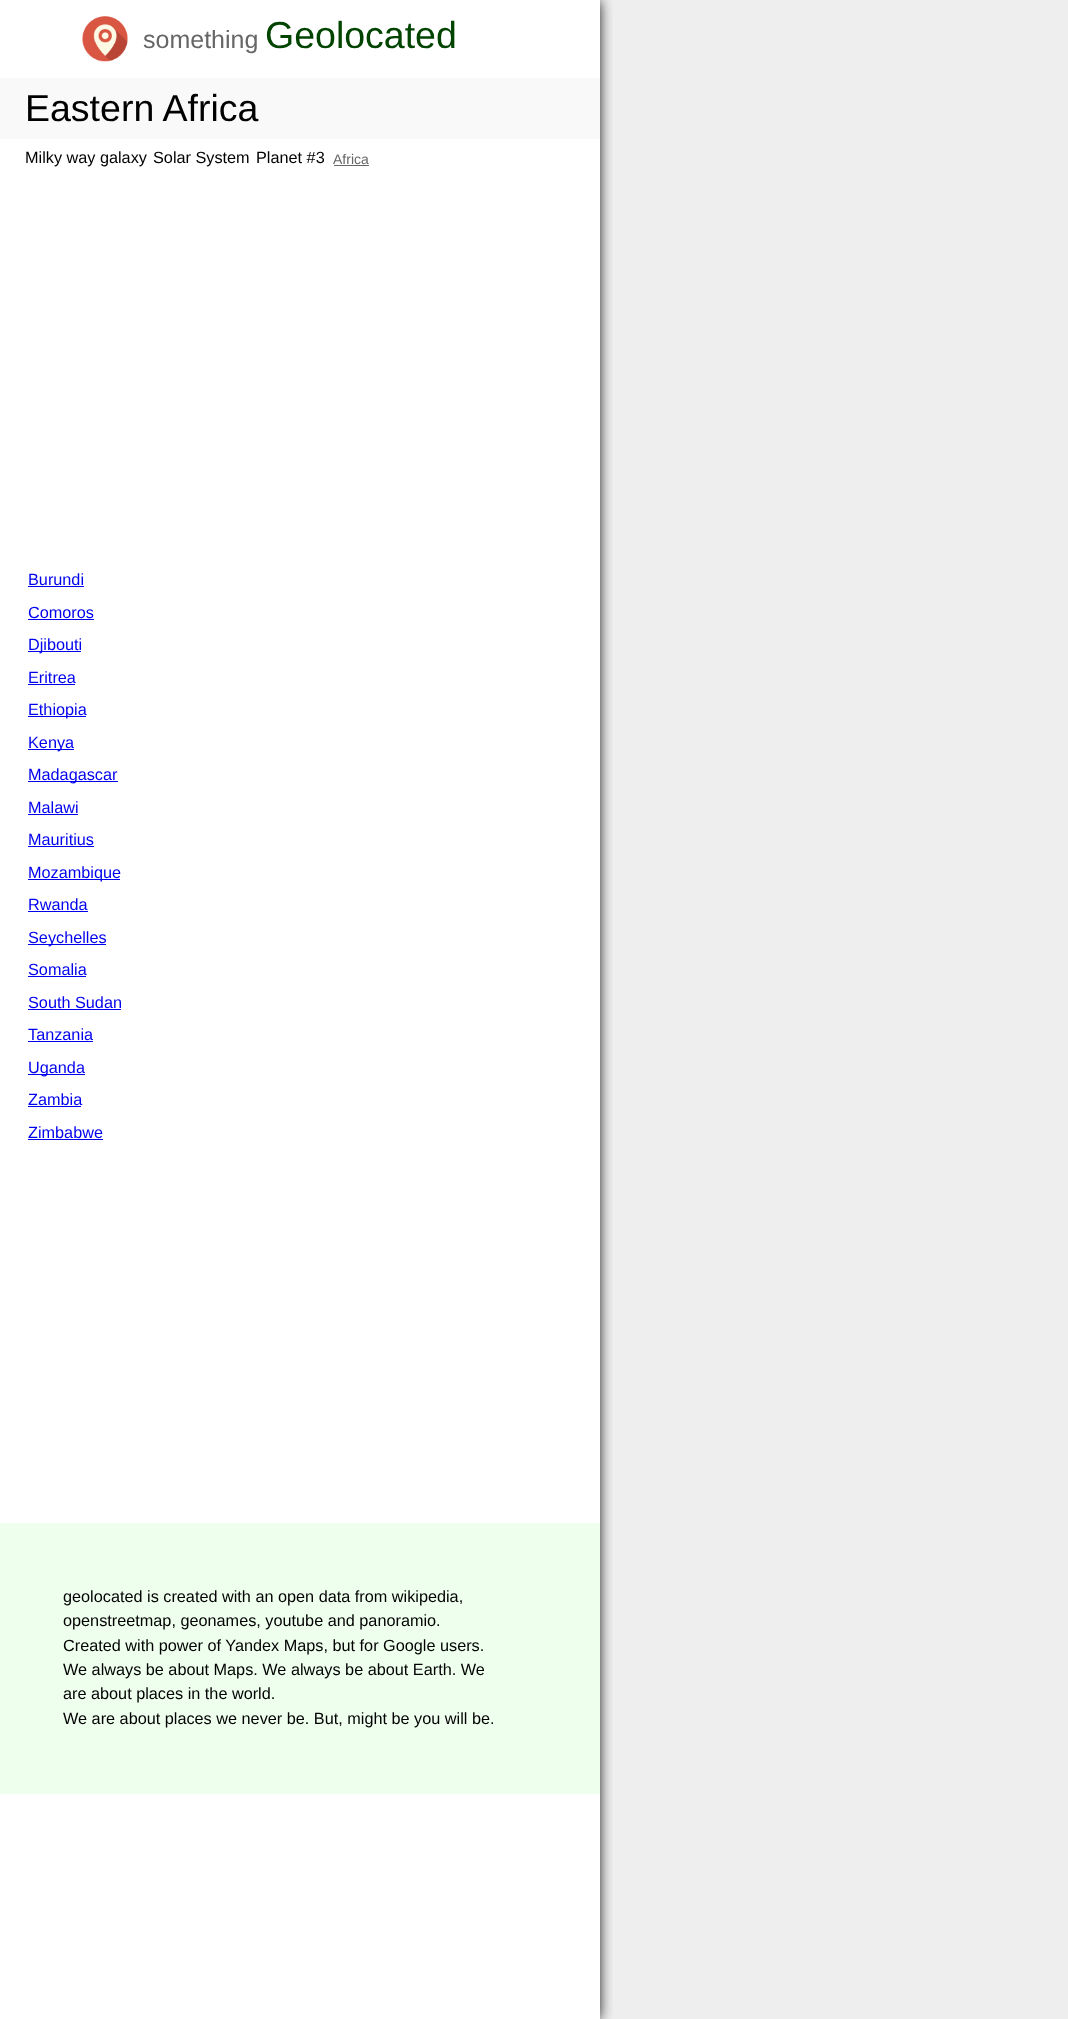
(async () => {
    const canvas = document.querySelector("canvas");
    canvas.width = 1068;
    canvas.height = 2019;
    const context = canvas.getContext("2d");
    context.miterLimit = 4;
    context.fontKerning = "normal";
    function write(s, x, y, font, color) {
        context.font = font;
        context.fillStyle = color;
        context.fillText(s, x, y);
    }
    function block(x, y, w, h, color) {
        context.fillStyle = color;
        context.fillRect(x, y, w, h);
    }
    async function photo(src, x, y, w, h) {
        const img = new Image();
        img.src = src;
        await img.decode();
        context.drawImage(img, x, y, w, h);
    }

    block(0, 0, 1068, 2019, "rgb(255, 255, 255)");
    block(600, 0, 468, 2019, "rgb(238, 238, 238)");
    context.save();
    context.beginPath();
    context.rect(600, 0, 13, 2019);
    context.clip();
    context.fillStyle = "rgb(0, 0, 0)";
    context.filter = "blur(7px)";
    context.beginPath();
    context.rect(1, 1, 598, 2018);
    context.fill();
    context.filter = "none";
    context.restore();
    await photo("media/1.png", 82, 16, 46, 46);
    write("something", 143, 48, "25px Liberation Sans", "rgb(102, 102, 102)");
    write("Geolocated", 265, 48, "37.5px Liberation Sans", "rgb(0, 68, 0)");
    block(0, 78, 600, 61, "rgb(249, 249, 249)");
    write("Eastern Africa", 25, 121, "37.5px Liberation Sans", "rgb(0, 0, 0)");
    write("Milky way galaxy", 25, 163, "16.25px Liberation Sans", "rgb(0, 0, 0)");
    write("Solar System", 153, 163, "16.25px Liberation Sans", "rgb(0, 0, 0)");
    write("Planet #3", 256, 163, "16.25px Liberation Sans", "rgb(0, 0, 0)");
    write("Africa", 333, 164, "14px Liberation Sans", "rgb(102, 102, 102)");
    block(334, 165, 35, 1, "rgb(102, 102, 102)");
    write("Burundi", 28, 585, "16.25px Liberation Sans", "rgb(0, 0, 238)");
    block(28, 586, 56, 1, "rgb(0, 0, 238)");
    write("Comoros", 28, 618, "16.25px Liberation Sans", "rgb(0, 0, 238)");
    block(28, 619, 66, 1, "rgb(0, 0, 238)");
    block(28, 651, 53, 1, "rgb(0, 0, 238)");
    write("Djibouti", 28, 650, "16.25px Liberation Sans", "rgb(0, 0, 238)");
    write("Eritrea", 28, 683, "16.25px Liberation Sans", "rgb(0, 0, 238)");
    block(28, 684, 47, 1, "rgb(0, 0, 238)");
    block(28, 716, 58, 1, "rgb(0, 0, 238)");
    write("Ethiopia", 28, 715, "16.25px Liberation Sans", "rgb(0, 0, 238)");
    block(28, 749, 46, 1, "rgb(0, 0, 238)");
    write("Kenya", 28, 748, "16.25px Liberation Sans", "rgb(0, 0, 238)");
    block(28, 781, 90, 1, "rgb(0, 0, 238)");
    write("Madagascar", 28, 780, "16.25px Liberation Sans", "rgb(0, 0, 238)");
    write("Malawi", 28, 813, "16.25px Liberation Sans", "rgb(0, 0, 238)");
    block(28, 814, 50, 1, "rgb(0, 0, 238)");
    write("Mauritius", 28, 845, "16.25px Liberation Sans", "rgb(0, 0, 238)");
    block(28, 846, 66, 1, "rgb(0, 0, 238)");
    block(28, 879, 92, 1, "rgb(0, 0, 238)");
    write("Mozambique", 28, 878, "16.25px Liberation Sans", "rgb(0, 0, 238)");
    write("Rwanda", 28, 910, "16.25px Liberation Sans", "rgb(0, 0, 238)");
    block(28, 911, 60, 1, "rgb(0, 0, 238)");
    block(28, 944, 78, 1, "rgb(0, 0, 238)");
    write("Seychelles", 28, 943, "16.25px Liberation Sans", "rgb(0, 0, 238)");
    write("Somalia", 28, 975, "16.25px Liberation Sans", "rgb(0, 0, 238)");
    block(28, 976, 58, 1, "rgb(0, 0, 238)");
    write("South Sudan", 28, 1008, "16.25px Liberation Sans", "rgb(0, 0, 238)");
    block(28, 1009, 93, 1, "rgb(0, 0, 238)");
    write("Tanzania", 28, 1040, "16.25px Liberation Sans", "rgb(0, 0, 238)");
    block(28, 1041, 65, 1, "rgb(0, 0, 238)");
    block(28, 1074, 57, 1, "rgb(0, 0, 238)");
    write("Uganda", 28, 1073, "16.25px Liberation Sans", "rgb(0, 0, 238)");
    write("Zambia", 28, 1105, "16.25px Liberation Sans", "rgb(0, 0, 238)");
    block(28, 1106, 53, 1, "rgb(0, 0, 238)");
    write("Zimbabwe", 28, 1138, "16.25px Liberation Sans", "rgb(0, 0, 238)");
    block(28, 1139, 75, 1, "rgb(0, 0, 238)");
    block(0, 1523, 600, 271, "rgb(238, 255, 238)");
    write("geolocated is created with an open data from wikipedia,", 63, 1602, "16.25px Liberation Sans", "rgb(0, 0, 0)");
    write("openstreetmap, geonames, youtube and panoramio.", 63, 1626, "16.25px Liberation Sans", "rgb(0, 0, 0)");
    write("Created with power of Yandex Maps, but for Google users.", 63, 1651, "16.25px Liberation Sans", "rgb(0, 0, 0)");
    write("We always be about Maps. We always be about Earth. We", 63, 1675, "16.25px Liberation Sans", "rgb(0, 0, 0)");
    write("are about places in the world.", 63, 1699, "16.25px Liberation Sans", "rgb(0, 0, 0)");
    write("We are about places we never be. But, might be you will be.", 63, 1724, "16.25px Liberation Sans", "rgb(0, 0, 0)");
})();
